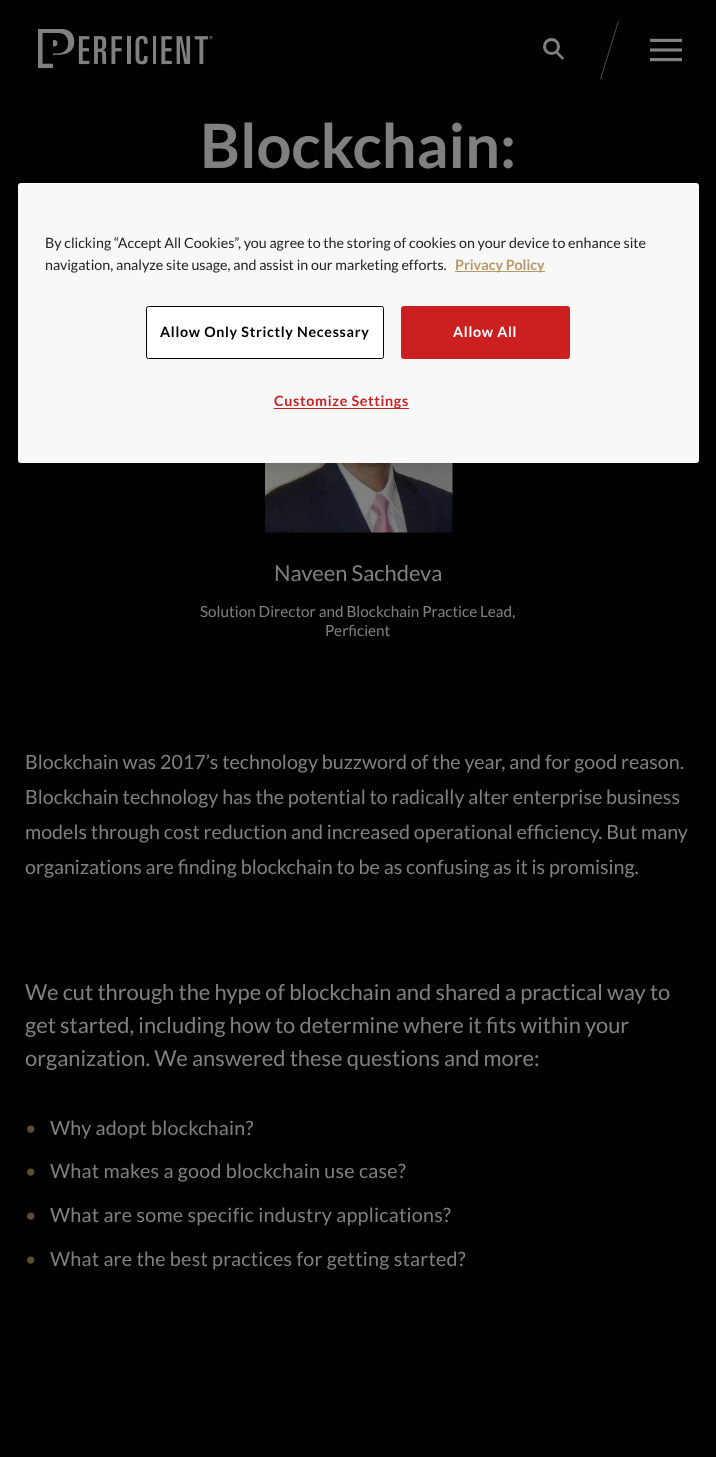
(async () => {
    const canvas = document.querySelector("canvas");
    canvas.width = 716;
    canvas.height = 1457;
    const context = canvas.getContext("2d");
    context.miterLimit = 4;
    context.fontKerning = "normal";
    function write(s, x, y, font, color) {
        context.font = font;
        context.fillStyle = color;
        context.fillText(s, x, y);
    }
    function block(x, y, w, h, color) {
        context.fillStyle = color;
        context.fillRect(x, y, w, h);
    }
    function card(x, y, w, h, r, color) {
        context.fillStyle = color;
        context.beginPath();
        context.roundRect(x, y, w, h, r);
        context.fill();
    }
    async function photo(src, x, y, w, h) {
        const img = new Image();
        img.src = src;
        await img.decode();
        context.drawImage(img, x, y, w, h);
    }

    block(0, 0, 716, 1457, "rgb(1, 1, 1)");
    await photo("media/1.png", 38, 29, 175, 40);
    context.beginPath();
    context.arc(551.5, 46.5, 7, 0, Math.PI * 2);
    context.strokeStyle = "rgb(128, 128, 128)";
    context.lineWidth = 3;
    context.stroke();
    context.fillStyle = "rgb(128, 128, 128)";
    context.beginPath();
    context.moveTo(556.5, 50);
    context.lineTo(564, 58);
    context.lineTo(562.5, 60);
    context.lineTo(554.5, 52);
    context.closePath();
    context.fill();
    context.fillStyle = "rgb(92, 77, 52)";
    context.beginPath();
    context.moveTo(618, 21);
    context.lineTo(619, 21);
    context.lineTo(601, 79);
    context.lineTo(600, 79);
    context.closePath();
    context.fill();
    await photo("media/2.png", 650, 38, 32, 24);
    write("Blockchain:", 200, 168, "bold 61.25px Lato", "rgb(128, 128, 128)");
    await photo("media/3.png", 265, 463, 188, 70);
    write("Naveen Sachdeva", 274, 581, "21.9px Lato", "rgb(128, 128, 128)");
    write("Solution Director and Blockchain Practice Lead,", 200, 617, "15.3px Lato", "rgb(128, 128, 128)");
    write("Perficient", 325, 636, "15.3px Lato", "rgb(128, 128, 128)");
    write("Blockchain was 2017’s technology buzzword of the year, and for good reason.", 25, 769, "19.7px Lato", "rgb(128, 128, 128)");
    write("Blockchain technology has the potential to radically alter enterprise business", 25, 804, "19.7px Lato", "rgb(128, 128, 128)");
    write("models through cost reduction and increased operational efficiency. But many", 25, 839, "19.7px Lato", "rgb(128, 128, 128)");
    write("organizations are finding blockchain to be as confusing as it is promising.", 25, 874, "19.7px Lato", "rgb(128, 128, 128)");
    write("We cut through the hype of blockchain and shared a practical way to", 25, 1000, "21.9px Lato", "rgb(128, 128, 128)");
    write("get started, including how to determine where it fits within your", 25, 1033, "21.9px Lato", "rgb(128, 128, 128)");
    write("organization. We answered these questions and more:", 25, 1066, "21.9px Lato", "rgb(128, 128, 128)");
    context.letterSpacing = "0.25px";
    write("•", 25, 1135, "19.7px Lato", "rgb(92, 77, 52)");
    write("Why adopt blockchain?", 50, 1135, "19.7px Lato", "rgb(128, 128, 128)");
    write("•", 25, 1178, "19.7px Lato", "rgb(92, 77, 52)");
    write("What makes a good blockchain use case?", 50, 1178, "19.7px Lato", "rgb(128, 128, 128)");
    write("•", 25, 1222, "19.7px Lato", "rgb(92, 77, 52)");
    write("What are some specific industry applications?", 50, 1222, "19.7px Lato", "rgb(128, 128, 128)");
    write("•", 25, 1266, "19.7px Lato", "rgb(92, 77, 52)");
    write("What are the best practices for getting started?", 50, 1266, "19.7px Lato", "rgb(128, 128, 128)");
    context.fillStyle = "rgba(0, 0, 0, 0.2)";
    context.filter = "blur(11px)";
    context.beginPath();
    context.roundRect(18, 183, 681, 280, 3);
    context.fill();
    context.filter = "none";
    card(18, 183, 681, 280, 3, "rgb(248, 248, 248)");
    context.letterSpacing = "0px";
    write("By clicking “Accept All Cookies”, you agree to the storing of cookies on your device to enhance site", 45, 248, "14.25px Lato", "rgb(34, 34, 34)");
    write("navigation, analyze site usage, and assist in our marketing efforts.", 45, 270, "14.25px Lato", "rgb(34, 34, 34)");
    block(455, 271, 90, 1, "rgb(183, 153, 103)");
    write("Privacy Policy", 455, 270, "bold 14.25px Lato", "rgb(183, 153, 103)");
    context.fillStyle = "rgb(255, 255, 255)";
    context.beginPath();
    context.roundRect(146.5, 306.5, 237, 52, 2);
    context.fill();
    context.strokeStyle = "rgb(0, 0, 0)";
    context.lineWidth = 1;
    context.stroke();
    context.letterSpacing = "0.7px";
    write("Allow Only Strictly Necessary", 160, 337, "bold 14.25px Lato", "rgb(0, 0, 0)");
    context.fillStyle = "rgb(204, 31, 32)";
    context.beginPath();
    context.roundRect(401.5, 306.5, 168, 52, 2);
    context.fill();
    context.strokeStyle = "rgb(204, 31, 32)";
    context.stroke();
    write("Allow All", 453, 337, "bold 14.25px Lato", "rgb(255, 255, 255)");
    block(274, 408, 135, 1, "rgb(204, 31, 32)");
    write("Customize Settings", 274, 406, "bold 14.25px Lato", "rgb(204, 31, 32)");
})();
